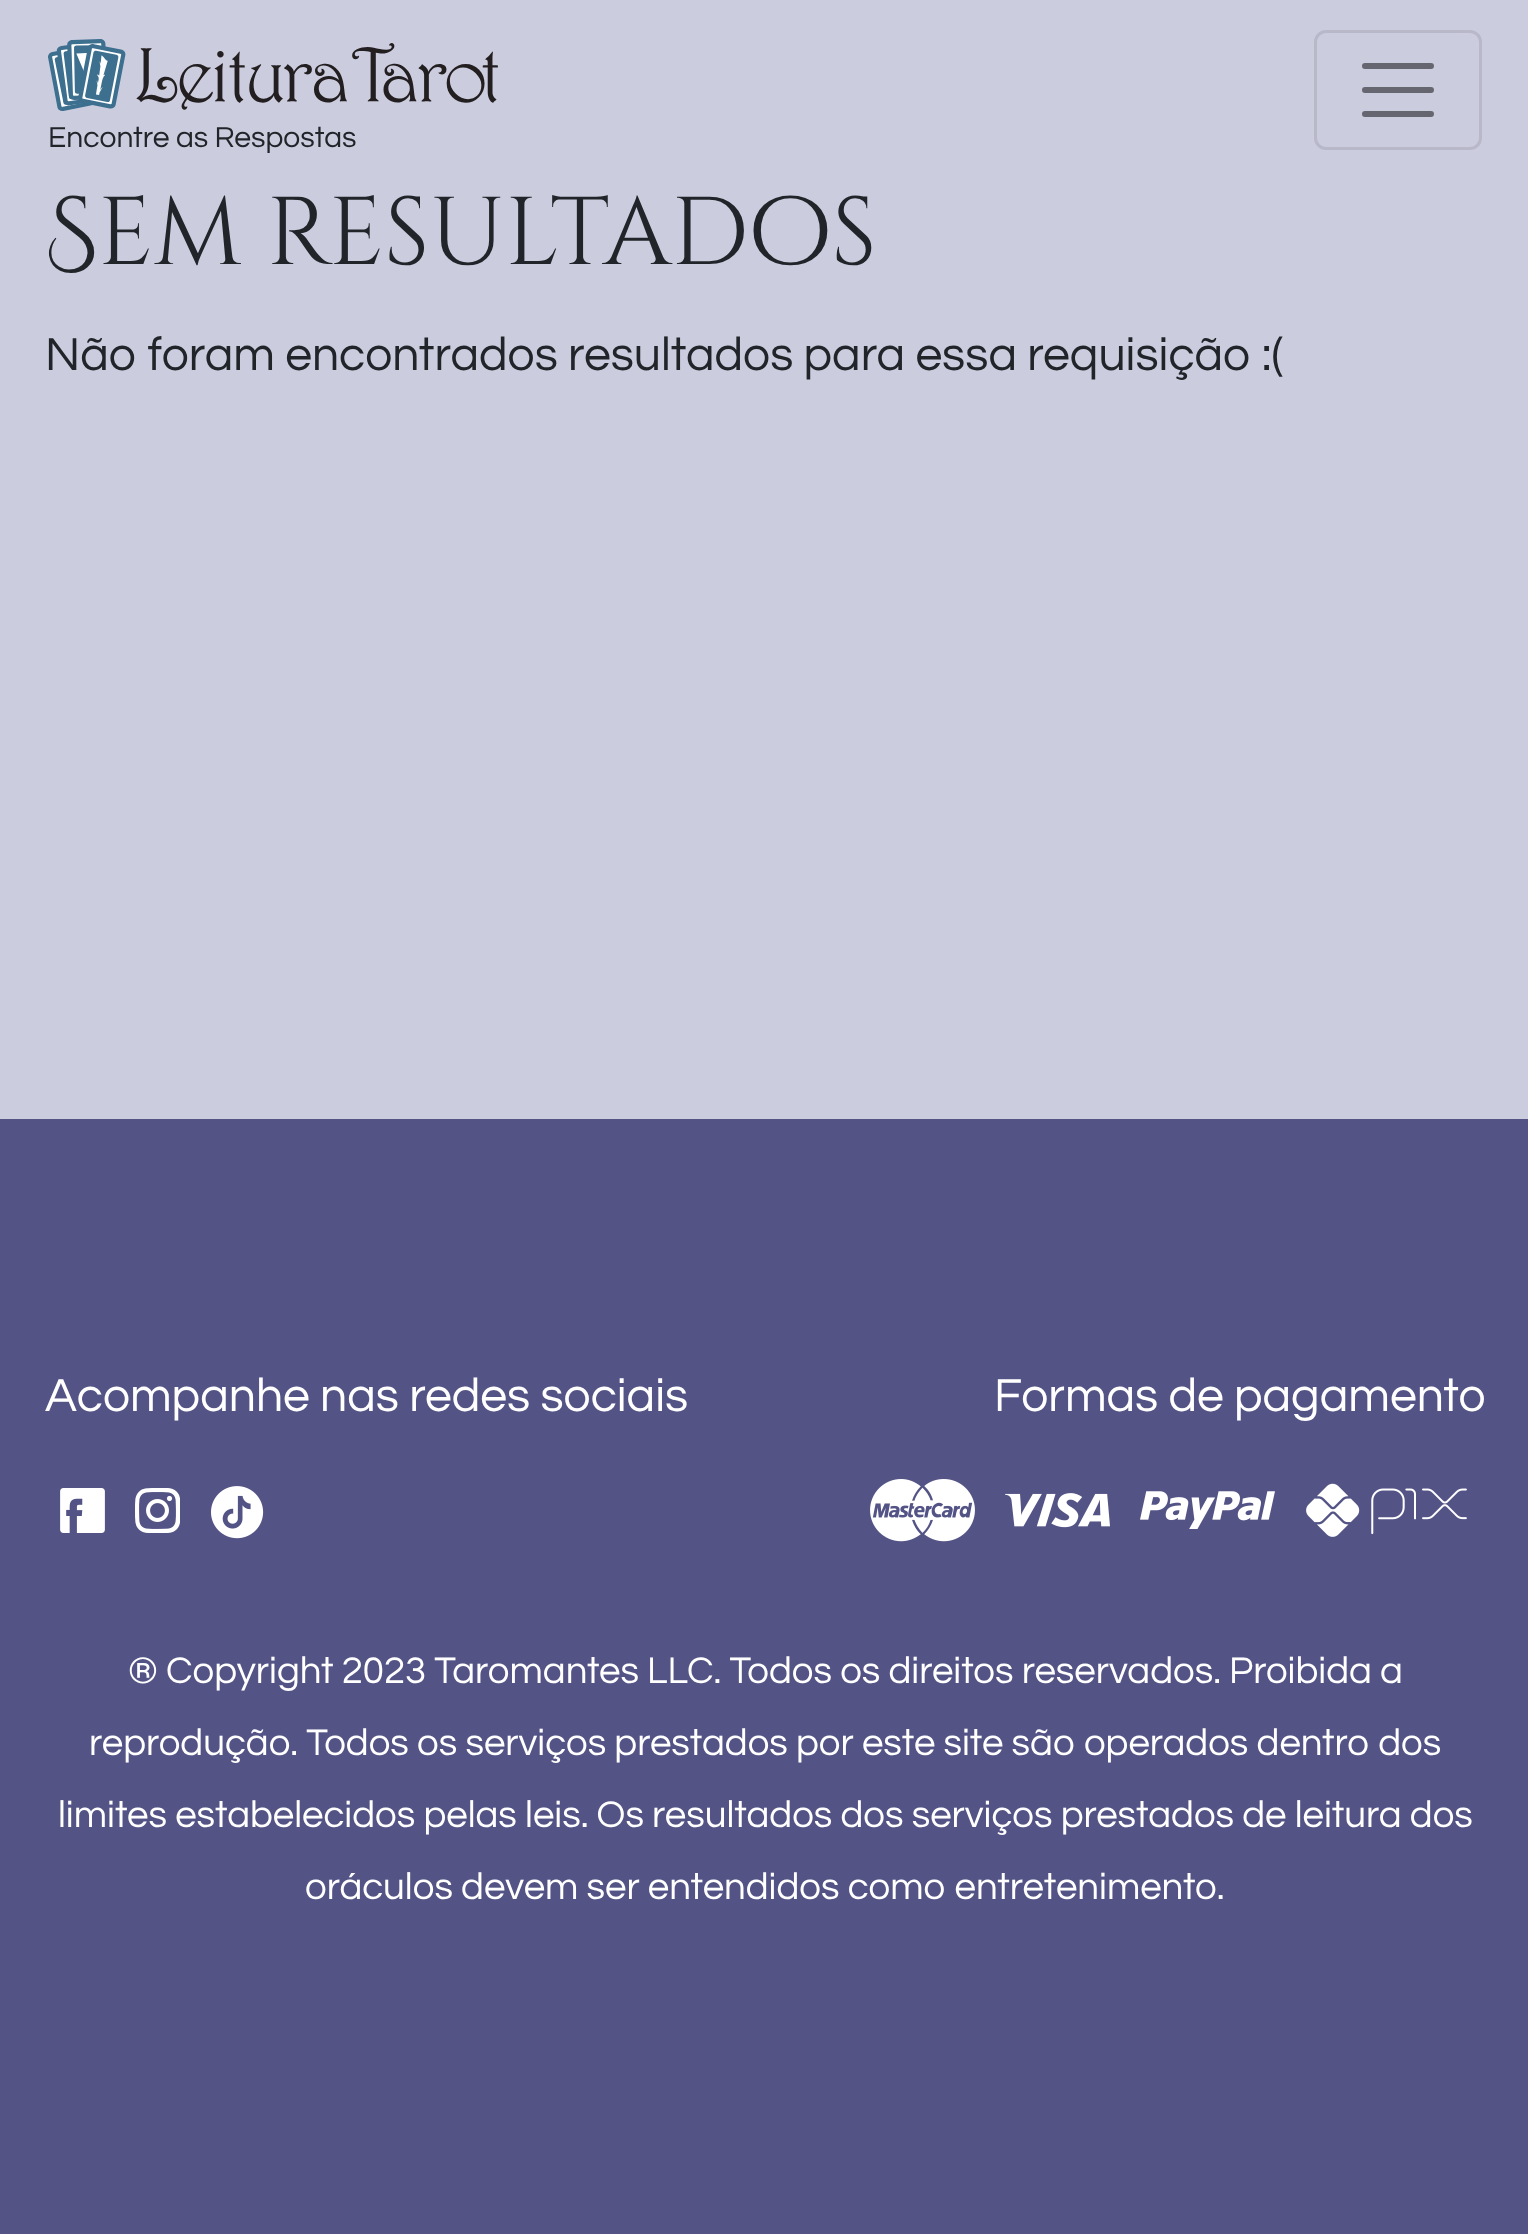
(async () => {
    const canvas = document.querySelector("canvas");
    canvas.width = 1528;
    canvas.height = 2234;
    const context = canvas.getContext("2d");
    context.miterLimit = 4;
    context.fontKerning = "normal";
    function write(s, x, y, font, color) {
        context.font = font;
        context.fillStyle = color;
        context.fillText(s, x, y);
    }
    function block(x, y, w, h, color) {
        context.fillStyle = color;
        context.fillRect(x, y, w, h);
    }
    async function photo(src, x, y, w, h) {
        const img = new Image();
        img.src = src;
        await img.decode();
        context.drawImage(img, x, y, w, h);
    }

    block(0, 0, 1528, 2234, "rgb(204, 204, 223)");
    await photo("media/1.png", 48, 39, 450, 72);
    context.beginPath();
    context.roundRect(1315.5, 31.5, 165, 117, 10.5);
    context.strokeStyle = "rgb(184, 184, 201)";
    context.lineWidth = 3;
    context.stroke();
    context.beginPath();
    context.moveTo(1365, 66);
    context.lineTo(1431, 66);
    context.moveTo(1365, 90);
    context.lineTo(1431, 90);
    context.moveTo(1365, 114);
    context.lineTo(1431, 114);
    context.strokeStyle = "rgb(102, 102, 112)";
    context.lineWidth = 6;
    context.lineCap = "round";
    context.stroke();
    write("Encontre as Respostas", 48, 147, "30px Questrial", "rgb(33, 37, 41)");
    write("Sem resultados", 45, 264, "96px Cinzel Decorative", "rgb(33, 37, 41)");
    write("Não foram encontrados resultados para essa requisição :(", 45, 370, "48px Questrial", "rgb(33, 37, 41)");
    block(0, 1119, 1528, 1115, "rgb(83, 83, 134)");
    write("Acompanhe nas redes sociais", 45, 1411, "48px Questrial", "rgb(255, 255, 255)");
    await photo("media/2.png", 60, 1488, 45, 45);
    await photo("media/3.png", 135, 1488, 45, 45);
    await photo("media/4.png", 211, 1486, 53, 53);
    write("Formas de pagamento", 994, 1411, "48px Questrial", "rgb(255, 255, 255)");
    await photo("media/5.png", 870, 1479, 105, 63);
    await photo("media/6.png", 1005, 1493, 105, 35);
    await photo("media/7.png", 1140, 1491, 135, 38);
    await photo("media/8.png", 1306, 1483, 161, 54);
    write("® Copyright 2023 Taromantes LLC. Todos os direitos reservados. Proibida a", 128, 1683, "38.4px Questrial", "rgb(255, 255, 255)");
    write("reprodução. Todos os serviços prestados por este site são operados dentro dos", 89, 1755, "38.4px Questrial", "rgb(255, 255, 255)");
    write("limites estabelecidos pelas leis. Os resultados dos serviços prestados de leitura dos", 58, 1827, "38.4px Questrial", "rgb(255, 255, 255)");
    write("oráculos devem ser entendidos como entretenimento.", 305, 1899, "38.4px Questrial", "rgb(255, 255, 255)");
})();
